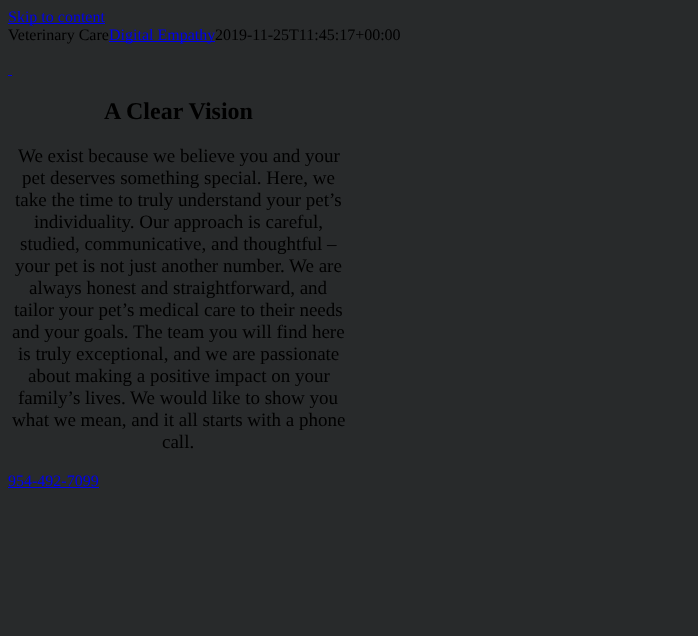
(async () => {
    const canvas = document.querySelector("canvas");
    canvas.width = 698;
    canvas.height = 636;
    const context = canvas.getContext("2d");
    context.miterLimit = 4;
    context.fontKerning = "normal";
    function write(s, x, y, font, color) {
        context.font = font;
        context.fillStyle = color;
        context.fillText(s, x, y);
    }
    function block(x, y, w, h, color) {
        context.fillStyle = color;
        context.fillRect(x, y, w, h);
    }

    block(0, 0, 698, 636, "rgb(40, 42, 43)");
    block(8, 23, 97, 1, "rgb(0, 0, 238)");
    write("Skip to content", 8, 22, "16px Liberation Serif", "rgb(0, 0, 238)");
    write("Veterinary Care", 8, 40, "16px Liberation Serif", "rgb(0, 0, 0)");
    block(109, 41, 106, 1, "rgb(0, 0, 238)");
    write("Digital Empathy", 109, 40, "16px Liberation Serif", "rgb(0, 0, 238)");
    write("2019-11-25T11:45:17+00:00", 215, 40, "16px Liberation Serif", "rgb(0, 0, 0)");
    block(8, 75, 4, 1, "rgb(0, 0, 238)");
    write("A Clear Vision", 104, 119, "bold 24px Liberation Serif", "rgb(0, 0, 0)");
    write("We exist because we believe you and your", 18, 162, "19px Liberation Serif", "rgb(0, 0, 0)");
    write("pet deserves something special. Here, we", 22, 184, "19px Liberation Serif", "rgb(0, 0, 0)");
    write("take the time to truly understand your pet’s", 15, 206, "19px Liberation Serif", "rgb(0, 0, 0)");
    write("individuality. Our approach is careful,", 34, 228, "19px Liberation Serif", "rgb(0, 0, 0)");
    write("studied, communicative, and thoughtful –", 20, 250, "19px Liberation Serif", "rgb(0, 0, 0)");
    write("your pet is not just another number. We are", 15, 272, "19px Liberation Serif", "rgb(0, 0, 0)");
    write("always honest and straightforward, and", 29, 294, "19px Liberation Serif", "rgb(0, 0, 0)");
    write("tailor your pet’s medical care to their needs", 14, 316, "19px Liberation Serif", "rgb(0, 0, 0)");
    write("and your goals. The team you will find here", 12, 338, "19px Liberation Serif", "rgb(0, 0, 0)");
    write("is truly exceptional, and we are passionate", 18, 360, "19px Liberation Serif", "rgb(0, 0, 0)");
    write("about making a positive impact on your", 28, 382, "19px Liberation Serif", "rgb(0, 0, 0)");
    write("family’s lives. We would like to show you", 18, 404, "19px Liberation Serif", "rgb(0, 0, 0)");
    write("what we mean, and it all starts with a phone", 12, 426, "19px Liberation Serif", "rgb(0, 0, 0)");
    write("call.", 162, 448, "19px Liberation Serif", "rgb(0, 0, 0)");
    write("954-492-7099", 8, 486, "16px Liberation Serif", "rgb(0, 0, 238)");
    block(8, 487, 91, 1, "rgb(0, 0, 238)");
})();
